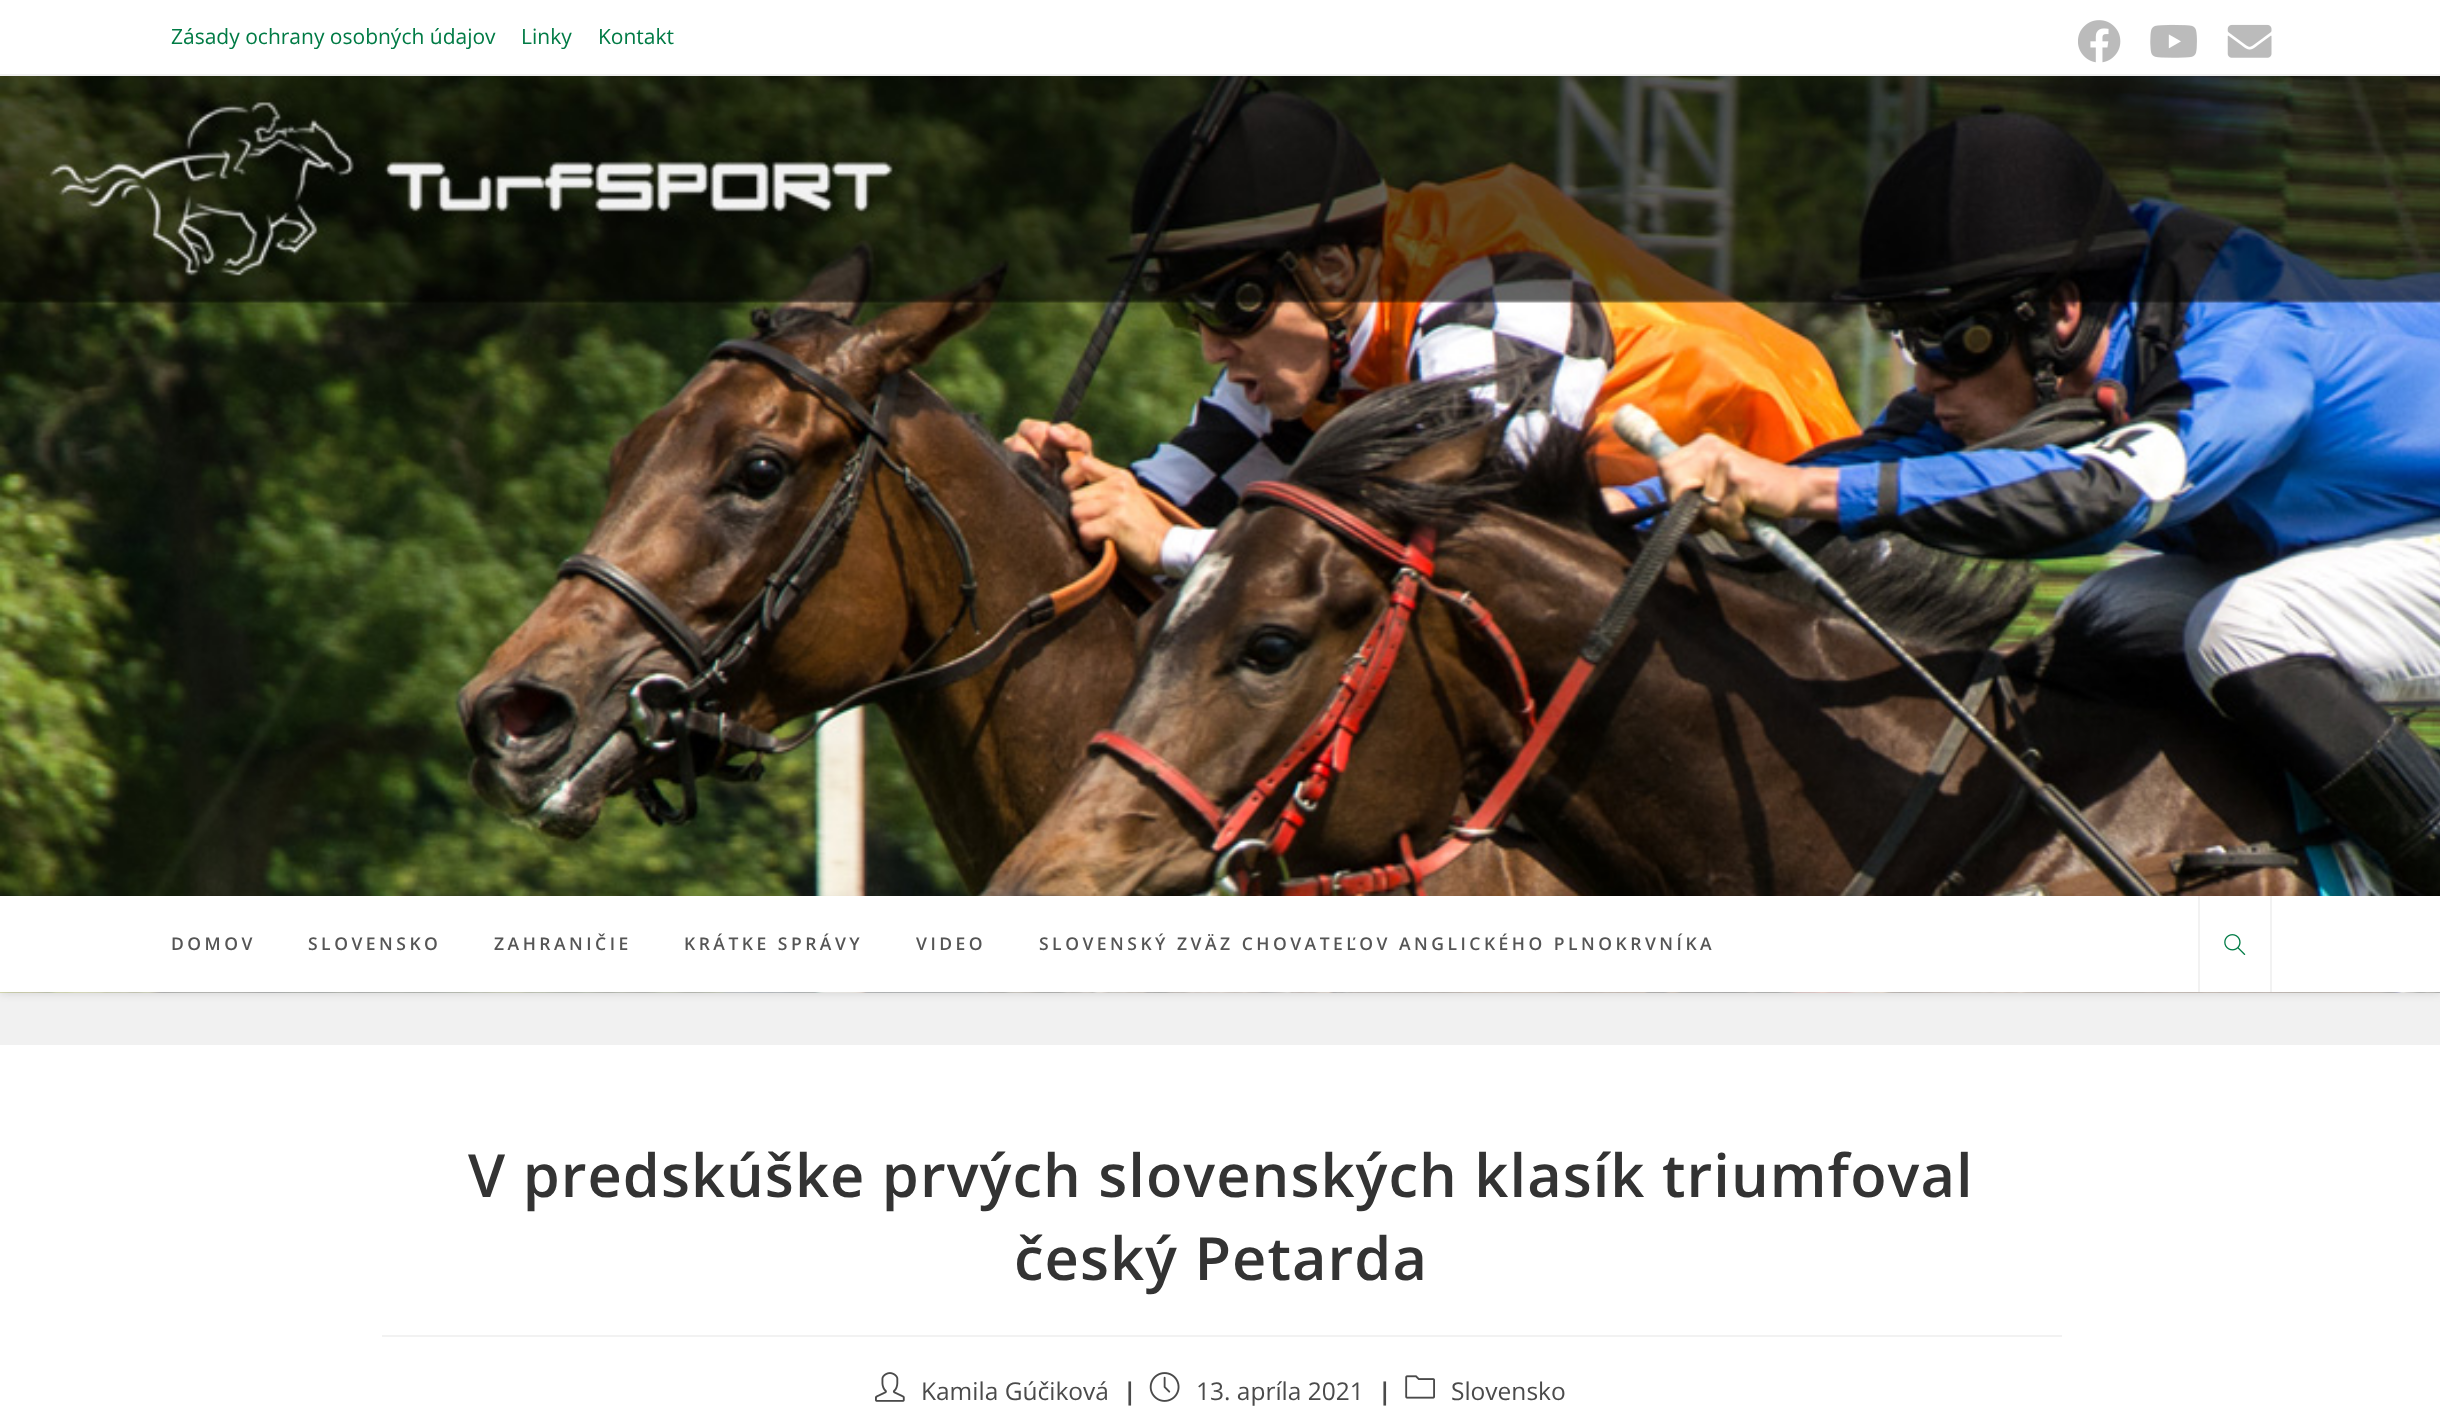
(async () => {
    const canvas = document.querySelector("canvas");
    canvas.width = 2440;
    canvas.height = 1420;
    const context = canvas.getContext("2d");
    context.miterLimit = 4;
    context.fontKerning = "normal";
    function write(s, x, y, font, color) {
        context.font = font;
        context.fillStyle = color;
        context.fillText(s, x, y);
    }
    function block(x, y, w, h, color) {
        context.fillStyle = color;
        context.fillRect(x, y, w, h);
    }
    async function photo(src, x, y, w, h) {
        const img = new Image();
        img.src = src;
        await img.decode();
        context.drawImage(img, x, y, w, h);
    }

    block(0, 0, 2440, 1420, "rgb(241, 241, 241)");
    block(0, 0, 2440, 74, "rgb(255, 255, 255)");
    write("Zásady ochrany osobných údajov", 171, 44, "21px Open Sans", "rgb(0, 123, 69)");
    write("Linky", 521, 44, "21px Open Sans", "rgb(0, 123, 69)");
    write("Kontakt", 598, 44, "21px Open Sans", "rgb(0, 123, 69)");
    await photo("media/1.png", 2078, 20, 43, 43);
    await photo("media/2.png", 2150, 24, 47, 34);
    await photo("media/3.png", 2227, 24, 45, 34);
    await photo("media/4.png", 0, 76, 2440, 917);
    context.fillStyle = "rgba(0, 0, 0, 0.1)";
    context.filter = "blur(4.5px)";
    context.beginPath();
    context.rect(0, 898, 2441, 96);
    context.fill();
    context.filter = "none";
    block(0, 896, 2440, 96, "rgb(255, 255, 255)");
    context.letterSpacing = "3.5px";
    write("DOMOV", 171, 950, "600 17.5px Open Sans", "rgb(85, 85, 85)");
    write("SLOVENSKO", 308, 950, "600 17.5px Open Sans", "rgb(85, 85, 85)");
    write("ZAHRANIČIE", 494, 950, "600 17.5px Open Sans", "rgb(85, 85, 85)");
    write("KRÁTKE SPRÁVY", 684, 950, "600 17.5px Open Sans", "rgb(85, 85, 85)");
    write("VIDEO", 916, 950, "600 17.5px Open Sans", "rgb(85, 85, 85)");
    write("SLOVENSKÝ ZVÄZ CHOVATEĽOV ANGLICKÉHO PLNOKRVNÍKA", 1039, 950, "600 17.5px Open Sans", "rgb(85, 85, 85)");
    block(2270, 896, 2, 96, "rgb(242, 242, 242)");
    block(2198, 896, 2, 96, "rgb(242, 242, 242)");
    await photo("media/5.png", 2224, 934, 22, 21);
    block(0, 1045, 2440, 375, "rgb(255, 255, 255)");
    block(382, 1335, 1680, 2, "rgb(242, 242, 242)");
    context.letterSpacing = "1.05px";
    write("V predskúške prvých slovenských klasík triumfoval", 468, 1197, "600 59.5px Open Sans", "rgb(51, 51, 51)");
    write("český Petarda", 1014, 1280, "600 59.5px Open Sans", "rgb(51, 51, 51)");
    await photo("media/6.png", 875, 1372, 30, 30);
    context.letterSpacing = "0px";
    write("Kamila Gúčiková", 921, 1400, "24.5px Open Sans", "rgb(74, 74, 74)");
    write("|", 1123, 1400, "bold 24.5px Open Sans", "rgb(74, 74, 74)");
    await photo("media/7.png", 1149, 1372, 31, 30);
    write("13. apríla 2021", 1196, 1400, "24.5px Open Sans", "rgb(74, 74, 74)");
    write("|", 1378, 1400, "bold 24.5px Open Sans", "rgb(74, 74, 74)");
    await photo("media/8.png", 1405, 1375, 30, 24);
    write("Slovensko", 1451, 1400, "24.5px Open Sans", "rgb(74, 74, 74)");
})();
